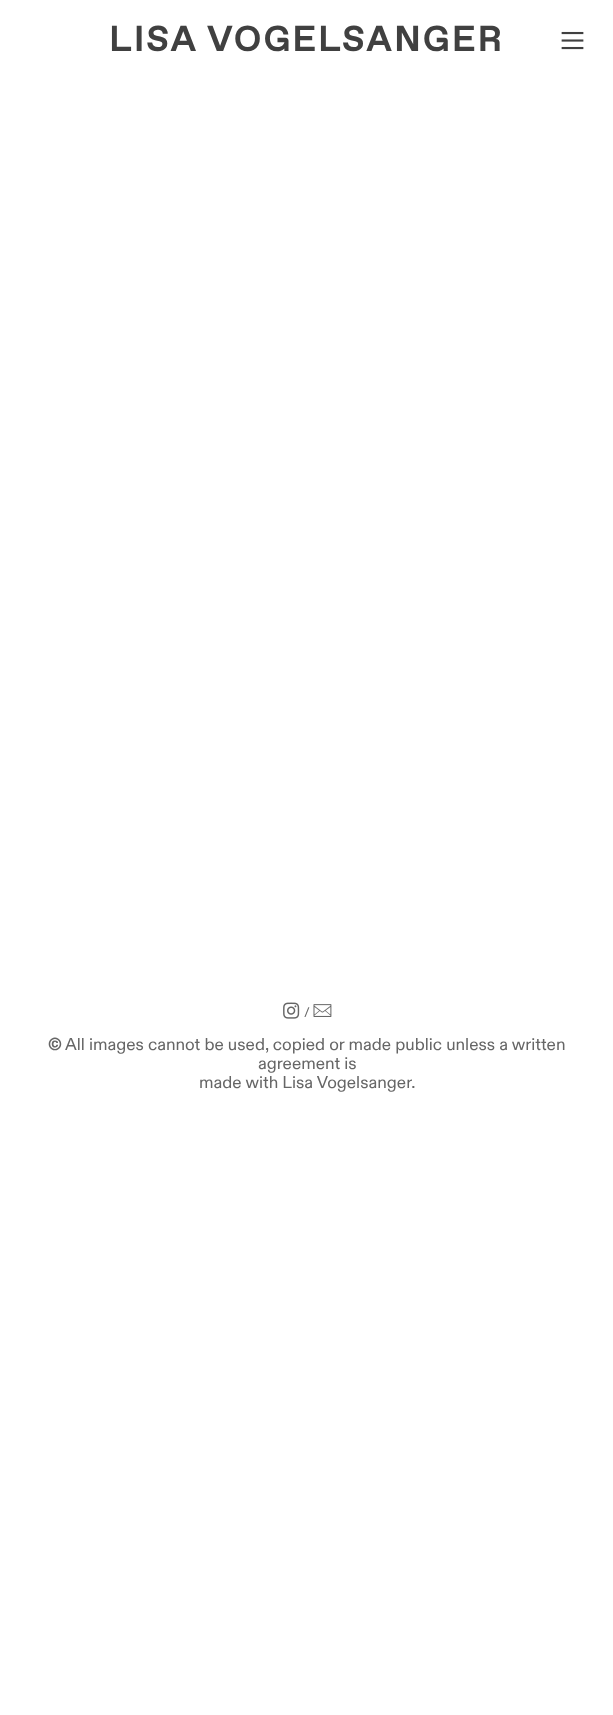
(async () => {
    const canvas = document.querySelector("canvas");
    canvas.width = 613;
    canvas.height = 1715;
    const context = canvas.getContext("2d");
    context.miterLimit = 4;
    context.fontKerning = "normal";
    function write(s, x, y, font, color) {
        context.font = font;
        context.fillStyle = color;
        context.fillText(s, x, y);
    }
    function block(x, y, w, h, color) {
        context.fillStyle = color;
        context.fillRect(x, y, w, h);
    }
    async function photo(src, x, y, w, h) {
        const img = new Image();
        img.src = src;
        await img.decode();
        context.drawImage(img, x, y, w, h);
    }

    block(0, 0, 613, 1715, "rgb(255, 255, 255)");
    context.letterSpacing = "1.9px";
    write("LISA VOGELSANGER", 109, 51, "bold 36.1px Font", "rgb(64, 64, 64)");
    await photo("media/1.png", 283, 1002, 17, 17);
    context.letterSpacing = "0px";
    write("/", 304, 1017, "14px Font", "rgb(102, 102, 102)");
    await photo("media/2.png", 313, 1004, 19, 13);
    write("©", 48, 1050, "bold 17.25px 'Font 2'", "rgb(102, 102, 102)");
    write("All images cannot be used, copied or made public unless a written", 65, 1050, "17.25px Font", "rgb(102, 102, 102)");
    write("agreement is", 258, 1069, "17.25px Font", "rgb(102, 102, 102)");
    write("made with Lisa Vogelsanger.", 199, 1088, "17.25px Font", "rgb(102, 102, 102)");
    await photo("media/3.png", 561, 31, 23, 19);
})();
